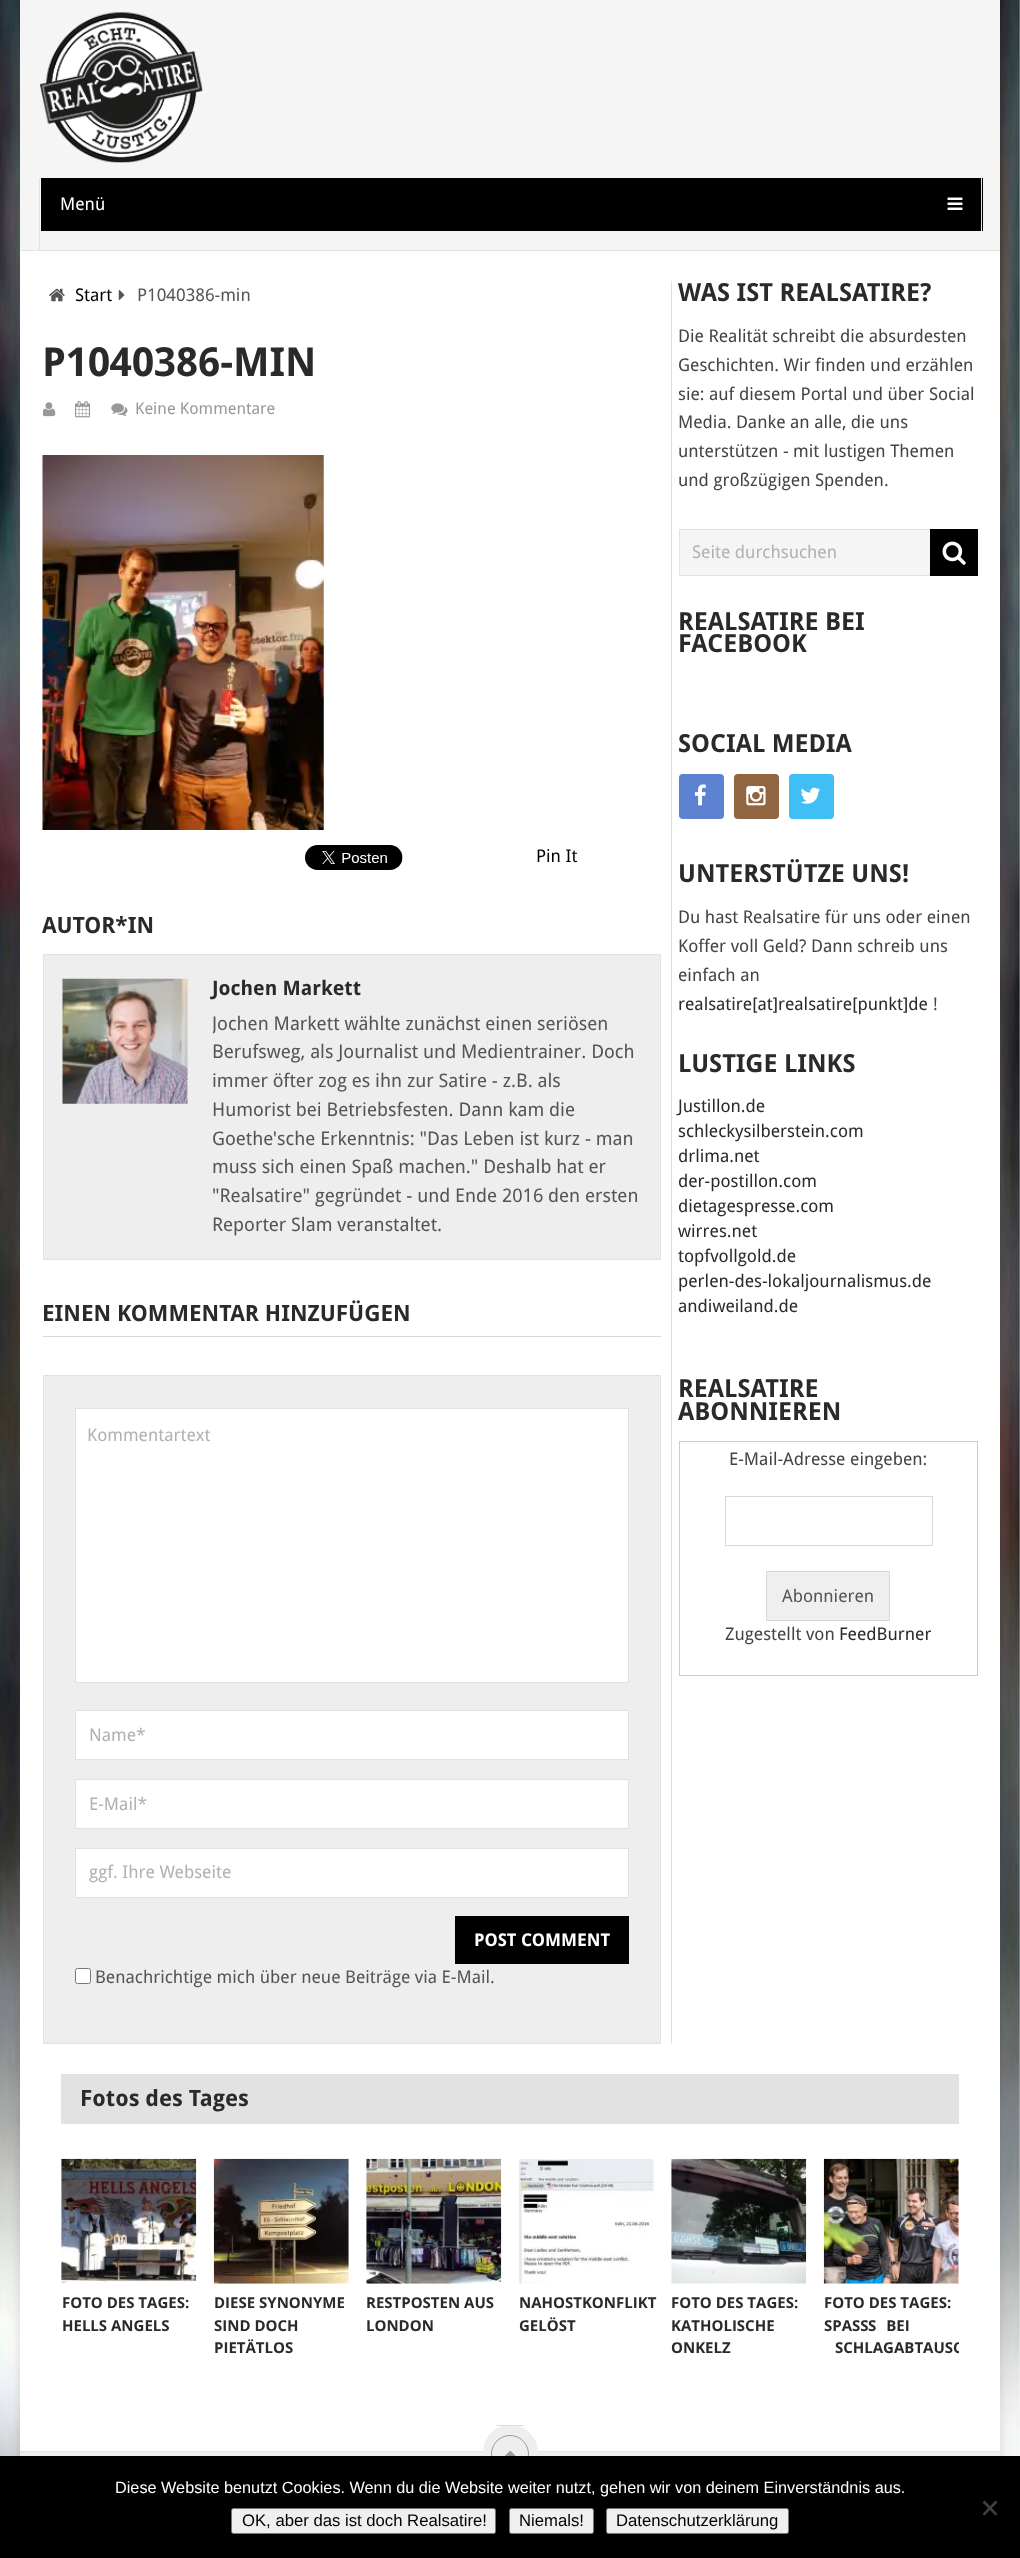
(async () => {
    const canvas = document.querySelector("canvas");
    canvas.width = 1020;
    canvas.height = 2558;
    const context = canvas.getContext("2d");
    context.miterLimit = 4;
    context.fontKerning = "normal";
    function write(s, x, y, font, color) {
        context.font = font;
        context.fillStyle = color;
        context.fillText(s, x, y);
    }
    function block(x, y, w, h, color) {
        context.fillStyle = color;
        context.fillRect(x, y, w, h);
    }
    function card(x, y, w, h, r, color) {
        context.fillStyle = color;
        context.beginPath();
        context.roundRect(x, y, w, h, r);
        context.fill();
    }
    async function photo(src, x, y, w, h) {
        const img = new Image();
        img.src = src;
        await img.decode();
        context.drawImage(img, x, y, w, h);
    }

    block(0, 0, 1020, 2558, "rgb(255, 255, 255)");
    await photo("media/1.png", 0, 0, 1020, 2456);
    context.fillStyle = "rgba(50, 50, 50, 0.17)";
    context.filter = "blur(6px)";
    context.beginPath();
    context.rect(20, 0, 980, 2534);
    context.fill();
    context.filter = "none";
    block(20, 251, 980, 2200, "rgb(255, 255, 255)");
    block(20, 0, 980, 250, "rgb(245, 245, 245)");
    block(20, 250, 980, 1, "rgb(226, 226, 226)");
    await photo("media/2.png", 40, 12, 163, 151);
    block(39, 178, 1, 72, "rgb(226, 226, 226)");
    block(41, 178, 942, 53, "rgb(0, 0, 0)");
    block(981, 178, 1, 53, "rgb(226, 226, 226)");
    block(40, 178, 1, 53, "rgb(255, 255, 255)");
    write("Menü", 60, 210, "17.5px Droid Sans", "rgb(255, 255, 255)");
    await photo("media/3.png", 947, 197, 16, 13);
    block(671, 281, 1, 1763, "rgb(223, 223, 223)");
    await photo("media/4.png", 49, 288, 16, 14);
    write("Start", 75, 301, "17.5px Droid Sans", "rgb(0, 0, 0)");
    await photo("media/5.png", 118, 290, 7, 10);
    write("P1040386-min", 137, 301, "17.5px Droid Sans", "rgb(85, 85, 85)");
    write("P1040386-MIN", 42, 376, "bold 40px Droid Sans", "rgb(42, 42, 42)");
    await photo("media/6.png", 43, 402, 13, 15);
    await photo("media/7.png", 75, 401, 16, 17);
    await photo("media/8.png", 111, 403, 17, 14);
    write("Keine Kommentare", 135, 414, "16.25px Droid Sans", "rgb(153, 153, 153)");
    await photo("media/9.png", 42, 455, 282, 375);
    await photo("media/10.png", 305, 845, 98, 25);
    write("Pin It", 536, 862, "17.5px Droid Sans", "rgb(0, 0, 0)");
    write("AUTOR*IN", 42, 933, "bold 22.5px Droid Sans", "rgb(42, 42, 42)");
    context.fillStyle = "rgb(238, 238, 238)";
    context.beginPath();
    context.rect(43.5, 954.5, 617, 305);
    context.fill();
    context.strokeStyle = "rgb(225, 225, 225)";
    context.stroke();
    await photo("media/11.png", 62, 978, 126, 126);
    write("Jochen Markett", 212, 995, "bold 20px Droid Sans", "rgb(42, 42, 42)");
    context.save();
    context.beginPath();
    context.rect(213, 1010, 428, 230);
    context.clip();
    write("Jochen Markett wählte zunächst einen seriösen", 212, 1030, "18.75px Droid Sans", "rgb(85, 85, 85)");
    context.restore();
    write("Berufsweg, als Journalist und Medientrainer. Doch", 212, 1058, "18.75px Droid Sans", "rgb(85, 85, 85)");
    write("immer öfter zog es ihn zur Satire - z.B. als", 212, 1087, "18.75px Droid Sans", "rgb(85, 85, 85)");
    write("Humorist bei Betriebsfesten. Dann kam die", 212, 1116, "18.75px Droid Sans", "rgb(85, 85, 85)");
    write("Goethe'sche Erkenntnis: \"Das Leben ist kurz - man", 212, 1145, "18.75px Droid Sans", "rgb(85, 85, 85)");
    write("muss sich einen Spaß machen.\" Deshalb hat er", 212, 1173, "18.75px Droid Sans", "rgb(85, 85, 85)");
    write("\"Realsatire\" gegründet - und Ende 2016 den ersten", 212, 1202, "18.75px Droid Sans", "rgb(85, 85, 85)");
    write("Reporter Slam veranstaltet.", 212, 1231, "18.75px Droid Sans", "rgb(85, 85, 85)");
    block(43, 1336, 618, 1, "rgb(216, 215, 215)");
    write("EINEN KOMMENTAR HINZUFÜGEN", 42, 1321, "bold 22.5px Droid Sans", "rgb(42, 42, 42)");
    context.fillStyle = "rgb(238, 238, 238)";
    context.beginPath();
    context.rect(43.5, 1375.5, 617, 668);
    context.fill();
    context.stroke();
    context.fillStyle = "rgb(255, 255, 255)";
    context.beginPath();
    context.rect(75.5, 1408.5, 553, 274);
    context.fill();
    context.stroke();
    write("Kommentartext", 87, 1441, "17.5px Droid Sans", "rgb(177, 177, 177)");
    context.fillStyle = "rgb(255, 255, 255)";
    context.beginPath();
    context.rect(75.5, 1710.5, 553, 49);
    context.fill();
    context.stroke();
    write("Name*", 89, 1741, "17.5px Droid Sans", "rgb(177, 177, 177)");
    context.fillStyle = "rgb(255, 255, 255)";
    context.beginPath();
    context.rect(75.5, 1779.5, 553, 49);
    context.fill();
    context.stroke();
    write("E-Mail*", 89, 1810, "17.5px Droid Sans", "rgb(177, 177, 177)");
    context.fillStyle = "rgb(255, 255, 255)";
    context.beginPath();
    context.rect(75.5, 1848.5, 553, 49);
    context.fill();
    context.stroke();
    write("ggf. Ihre Webseite", 89, 1878, "17.5px Droid Sans", "rgb(177, 177, 177)");
    block(455, 1916, 174, 48, "rgb(0, 0, 0)");
    write("POST COMMENT", 474, 1946, "bold 17.5px Droid Sans", "rgb(255, 255, 255)");
    context.beginPath();
    context.roundRect(75.5, 1968.5, 15, 15, 2);
    context.fill();
    context.strokeStyle = "rgb(118, 118, 118)";
    context.stroke();
    write("Benachrichtige mich über neue Beiträge via E-Mail.", 95, 1983, "17.5px Droid Sans", "rgb(85, 85, 85)");
    write("WAS IST REALSATIRE?", 678, 301, "bold 25px Droid Sans", "rgb(42, 42, 42)");
    write("Die Realität schreibt die absurdesten", 678, 342, "17.5px Droid Sans", "rgb(68, 68, 68)");
    write("Geschichten. Wir finden und erzählen", 678, 371, "17.5px Droid Sans", "rgb(68, 68, 68)");
    write("sie: auf diesem Portal und über Social", 678, 400, "17.5px Droid Sans", "rgb(68, 68, 68)");
    write("Media. Danke an alle, die uns", 678, 428, "17.5px Droid Sans", "rgb(68, 68, 68)");
    write("unterstützen - mit lustigen Themen", 678, 457, "17.5px Droid Sans", "rgb(68, 68, 68)");
    write("und großzügigen Spenden.", 678, 486, "17.5px Droid Sans", "rgb(68, 68, 68)");
    block(680, 530, 250, 45, "rgb(245, 245, 245)");
    context.strokeStyle = "rgb(226, 226, 226)";
    context.strokeRect(679.5, 529.5, 298, 46);
    write("Seite durchsuchen", 692, 558, "17.5px Droid Sans", "rgb(177, 177, 177)");
    block(930, 529, 48, 47, "rgb(0, 0, 0)");
    await photo("media/12.png", 942, 541, 24, 24);
    write("REALSATIRE BEI", 678, 630, "bold 25px Droid Sans", "rgb(42, 42, 42)");
    write("FACEBOOK", 678, 652, "bold 25px Droid Sans", "rgb(42, 42, 42)");
    write("SOCIAL MEDIA", 678, 752, "bold 25px Droid Sans", "rgb(42, 42, 42)");
    card(679, 774, 45, 45, 4, "rgb(93, 130, 209)");
    await photo("media/13.png", 694, 784, 12, 22);
    card(734, 774, 45, 45, 4, "rgb(145, 101, 63)");
    await photo("media/14.png", 746, 786, 20, 20);
    card(789, 774, 45, 45, 4, "rgb(64, 191, 245)");
    await photo("media/15.png", 800, 787, 21, 17);
    write("UNTERSTÜTZE UNS!", 678, 882, "bold 25px Droid Sans", "rgb(42, 42, 42)");
    write("Du hast Realsatire für uns oder einen", 678, 923, "17.5px Droid Sans", "rgb(68, 68, 68)");
    write("Koffer voll Geld? Dann schreib uns", 678, 952, "17.5px Droid Sans", "rgb(68, 68, 68)");
    write("einfach an", 678, 981, "17.5px Droid Sans", "rgb(68, 68, 68)");
    write("realsatire[at]realsatire[punkt]de", 678, 1010, "17.5px Droid Sans", "rgb(42, 42, 42)");
    write("!", 933, 1010, "17.5px Droid Sans", "rgb(68, 68, 68)");
    write("LUSTIGE LINKS", 678, 1072, "bold 25px Droid Sans", "rgb(42, 42, 42)");
    write("Justillon.de", 678, 1112, "17.5px Droid Sans", "rgb(42, 42, 42)");
    write("schleckysilberstein.com", 678, 1137, "17.5px Droid Sans", "rgb(42, 42, 42)");
    write("drlima.net", 678, 1162, "17.5px Droid Sans", "rgb(42, 42, 42)");
    write("der-postillon.com", 678, 1187, "17.5px Droid Sans", "rgb(42, 42, 42)");
    write("dietagespresse.com", 678, 1212, "17.5px Droid Sans", "rgb(42, 42, 42)");
    write("wirres.net", 678, 1237, "17.5px Droid Sans", "rgb(42, 42, 42)");
    write("topfvollgold.de", 678, 1262, "17.5px Droid Sans", "rgb(42, 42, 42)");
    write("perlen-des-lokaljournalismus.de", 678, 1287, "17.5px Droid Sans", "rgb(42, 42, 42)");
    write("andiweiland.de", 678, 1312, "17.5px Droid Sans", "rgb(42, 42, 42)");
    write("REALSATIRE", 678, 1397, "bold 25px Droid Sans", "rgb(42, 42, 42)");
    write("ABONNIEREN", 678, 1420, "bold 25px Droid Sans", "rgb(42, 42, 42)");
    context.strokeStyle = "rgb(204, 204, 204)";
    context.strokeRect(679.5, 1441.5, 298, 234);
    write("E-Mail-Adresse eingeben:", 729, 1465, "17.5px Droid Sans", "rgb(68, 68, 68)");
    context.strokeStyle = "rgb(216, 216, 216)";
    context.strokeRect(725.5, 1496.5, 207, 49);
    context.fillStyle = "rgb(239, 239, 239)";
    context.beginPath();
    context.rect(766.5, 1571.5, 123, 49);
    context.fill();
    context.stroke();
    write("Abonnieren", 782, 1602, "17.5px Droid Sans", "rgb(85, 85, 85)");
    write("Zugestellt von", 725, 1640, "17.5px Droid Sans", "rgb(68, 68, 68)");
    write("FeedBurner", 839, 1640, "17.5px Droid Sans", "rgb(42, 42, 42)");
    block(61, 2074, 898, 50, "rgb(226, 226, 226)");
    write("Fotos des Tages", 80, 2106, "bold 22.5px Droid Sans", "rgb(42, 42, 42)");
    await photo("media/16.png", 61, 2158, 136, 126);
    write("FOTO DES TAGES:", 62, 2308, "bold 15px Open Sans", "rgb(42, 42, 42)");
    write("HELLS ANGELS", 62, 2331, "bold 15px Open Sans", "rgb(42, 42, 42)");
    await photo("media/17.png", 213, 2158, 136, 126);
    write("DIESE SYNONYME", 214, 2308, "bold 15px Open Sans", "rgb(42, 42, 42)");
    write("SIND DOCH", 214, 2331, "bold 15px Open Sans", "rgb(42, 42, 42)");
    write("PIETÄTLOS", 214, 2353, "bold 15px Open Sans", "rgb(42, 42, 42)");
    await photo("media/18.png", 366, 2158, 136, 126);
    write("RESTPOSTEN AUS", 366, 2308, "bold 15px Open Sans", "rgb(42, 42, 42)");
    write("LONDON", 366, 2331, "bold 15px Open Sans", "rgb(42, 42, 42)");
    await photo("media/19.png", 519, 2159, 135, 125);
    write("NAHOSTKONFLIKT", 519, 2308, "bold 15px Open Sans", "rgb(42, 42, 42)");
    write("GELÖST", 519, 2331, "bold 15px Open Sans", "rgb(42, 42, 42)");
    await photo("media/20.png", 671, 2158, 136, 126);
    write("FOTO DES TAGES:", 671, 2308, "bold 15px Open Sans", "rgb(42, 42, 42)");
    write("KATHOLISCHE", 671, 2331, "bold 15px Open Sans", "rgb(42, 42, 42)");
    write("ONKELZ", 671, 2353, "bold 15px Open Sans", "rgb(42, 42, 42)");
    await photo("media/21.png", 823, 2158, 136, 126);
    write("FOTO DES TAGES:", 824, 2308, "bold 15px Open Sans", "rgb(42, 42, 42)");
    write("SPASS", 824, 2331, "bold 15px Open Sans", "rgb(42, 42, 42)");
    context.wordSpacing = "6px";
    write("S BEI", 868, 2331, "bold 15px Open Sans", "rgb(42, 42, 42)");
    context.save();
    context.beginPath();
    context.rect(61, 2074, 898, 290);
    context.clip();
    context.wordSpacing = "0px";
    write("SCHLAGABTAUSC", 835, 2353, "bold 15px Open Sans", "rgb(42, 42, 42)");
    context.restore();
    block(20, 2452, 980, 4, "rgb(238, 238, 238)");
    block(20, 2451, 980, 1, "rgb(226, 226, 226)");
    card(483, 2425, 55, 56, 27.5, "rgb(238, 238, 238)");
    block(496, 2425, 28, 1, "rgb(221, 221, 221)");
    context.beginPath();
    context.arc(510, 2454, 18.5, 0, Math.PI * 2);
    context.strokeStyle = "rgb(155, 155, 155)";
    context.stroke();
    await photo("media/22.png", 504, 2450, 12, 6);
    block(0, 2456, 1020, 102, "rgb(0, 0, 0)");
    context.wordSpacing = "0px";
    write("Diese Website benutzt Cookies. Wenn du die Website weiter nutzt, gehen wir von deinem Einverständnis aus.", 115, 2493, "16.25px Liberation Sans", "rgb(255, 255, 255)");
    context.fillStyle = "rgb(64, 64, 64)";
    context.beginPath();
    context.moveTo(995.5, 2500.5);
    context.lineTo(997.5, 2502.5);
    context.lineTo(984.5, 2515.5);
    context.lineTo(982.5, 2514);
    context.closePath();
    context.fill();
    context.beginPath();
    context.moveTo(982.5, 2502.5);
    context.lineTo(984.5, 2500.5);
    context.lineTo(997.5, 2514);
    context.lineTo(995.5, 2515.5);
    context.closePath();
    context.fill();
    context.fillStyle = "rgb(239, 239, 239)";
    context.beginPath();
    context.roundRect(231.5, 2508.5, 264, 25, 2);
    context.fill();
    context.strokeStyle = "rgb(118, 118, 118)";
    context.stroke();
    write("OK, aber das ist doch Realsatire!", 242, 2526, "16.7px Liberation Sans", "rgb(0, 0, 0)");
    context.fillStyle = "rgb(239, 239, 239)";
    context.beginPath();
    context.roundRect(509.5, 2508.5, 84, 25, 2);
    context.fill();
    context.stroke();
    write("Niemals!", 519, 2526, "16.7px Liberation Sans", "rgb(0, 0, 0)");
    context.fillStyle = "rgb(239, 239, 239)";
    context.beginPath();
    context.roundRect(606.5, 2508.5, 182, 25, 2);
    context.fill();
    context.stroke();
    write("Datenschutzerklärung", 616, 2526, "16.7px Liberation Sans", "rgb(0, 0, 0)");
})();
